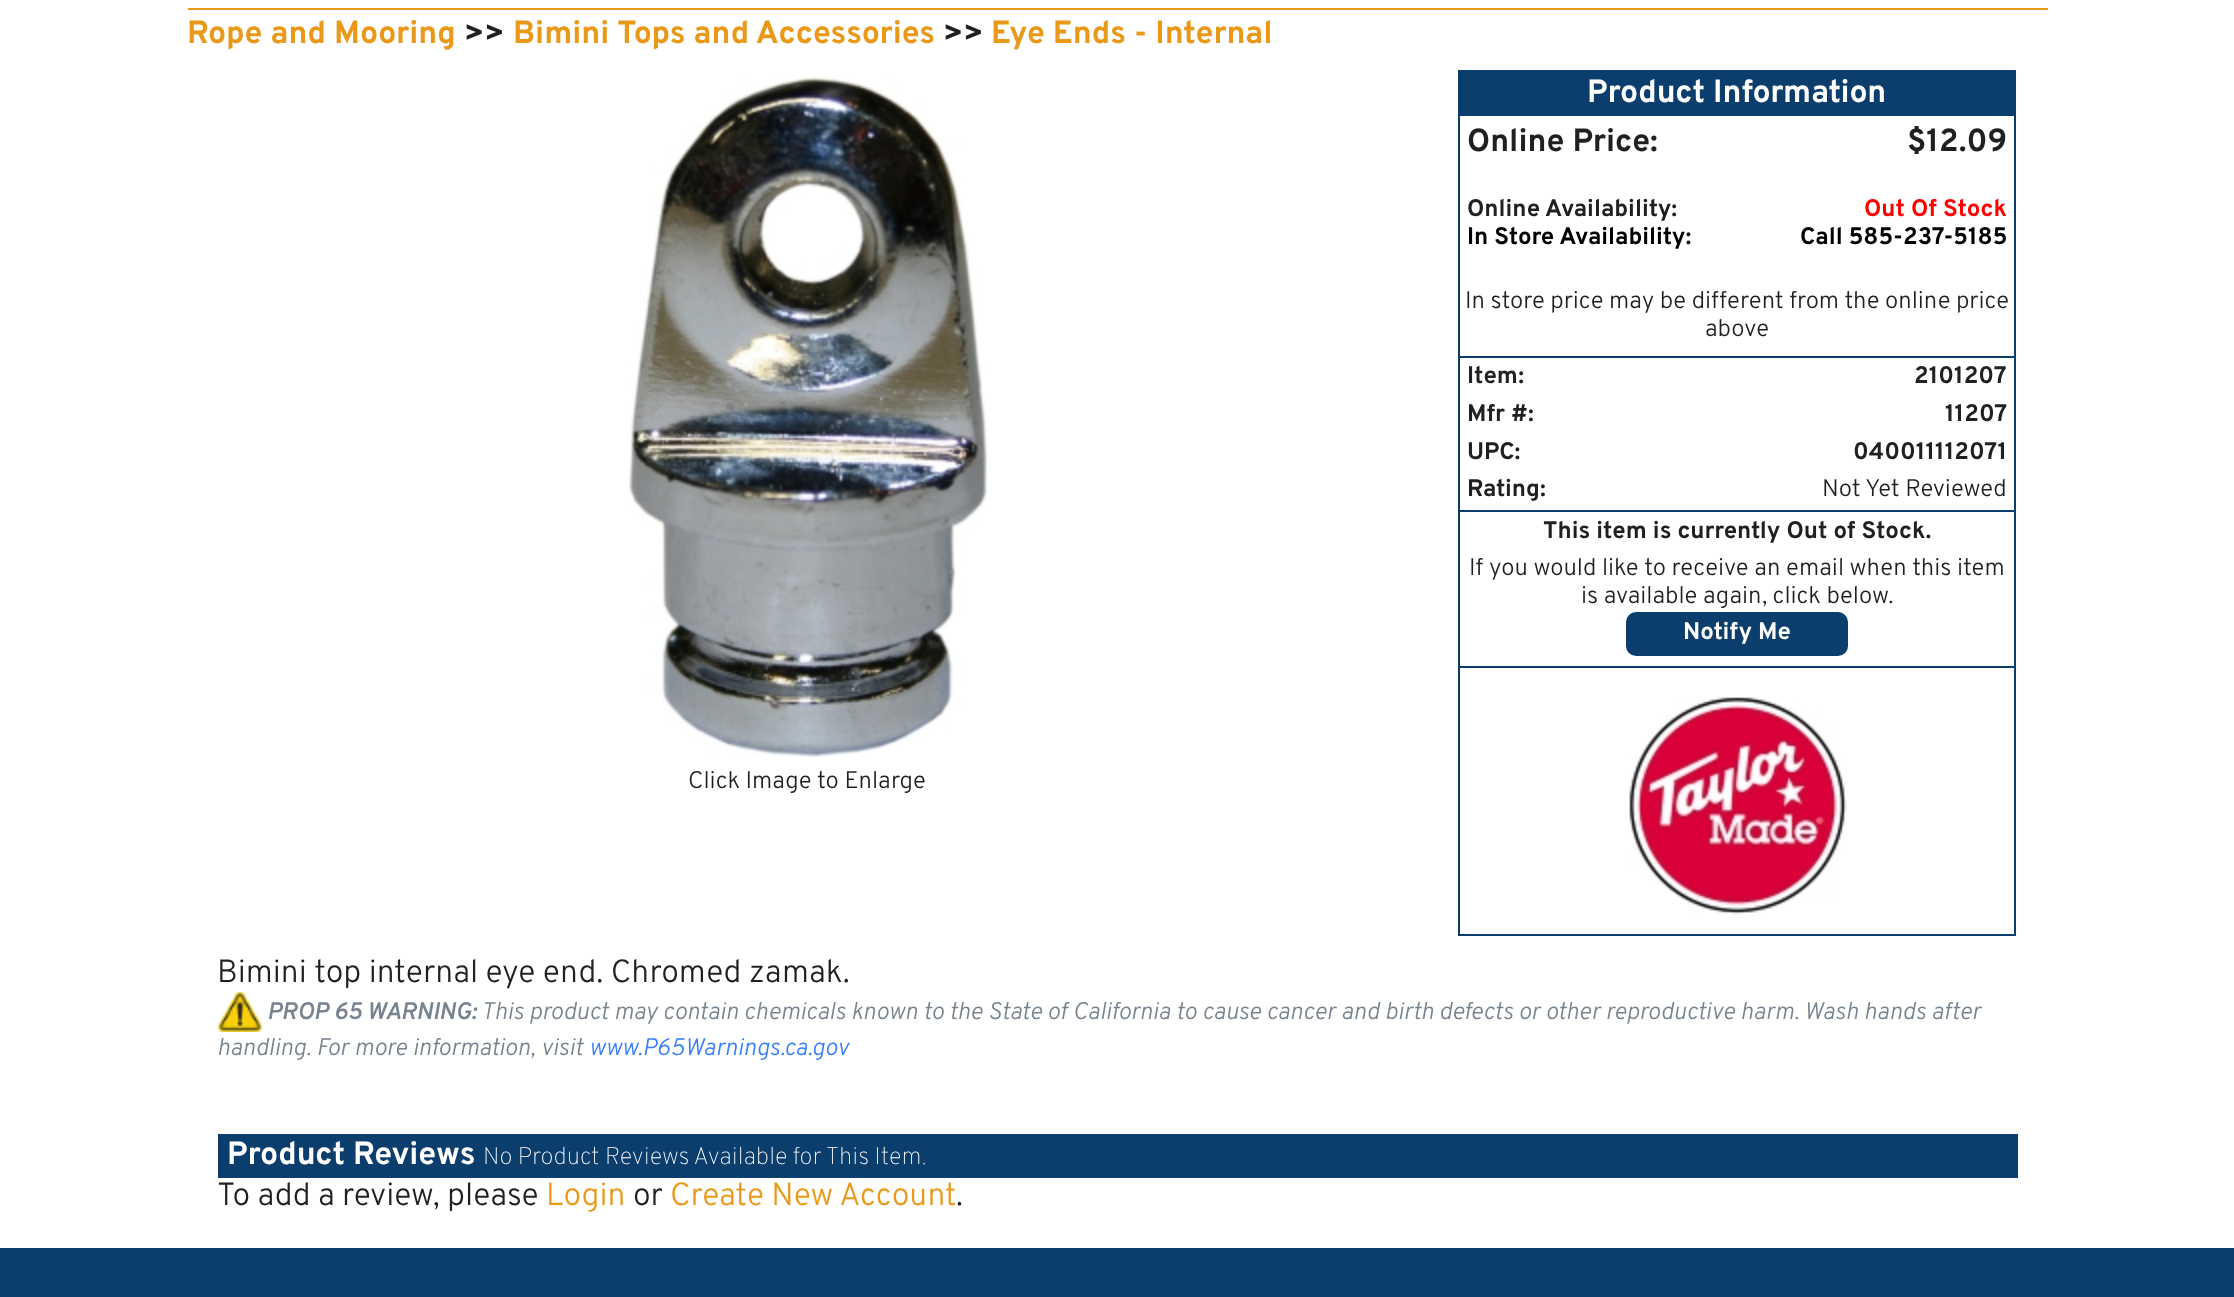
(async () => {
    const canvas = document.querySelector("canvas");
    canvas.width = 2234;
    canvas.height = 1297;
    const context = canvas.getContext("2d");
    context.miterLimit = 4;
    context.fontKerning = "normal";
    function write(s, x, y, font, color) {
        context.font = font;
        context.fillStyle = color;
        context.fillText(s, x, y);
    }
    function block(x, y, w, h, color) {
        context.fillStyle = color;
        context.fillRect(x, y, w, h);
    }
    function card(x, y, w, h, r, color) {
        context.fillStyle = color;
        context.beginPath();
        context.roundRect(x, y, w, h, r);
        context.fill();
    }
    async function photo(src, x, y, w, h) {
        const img = new Image();
        img.src = src;
        await img.decode();
        context.drawImage(img, x, y, w, h);
    }

    block(0, 0, 2234, 1297, "rgb(255, 255, 255)");
    block(188, 8, 1860, 2, "rgb(233, 152, 24)");
    write("Rope and Mooring", 187, 43, "bold 32px Overpass", "rgb(233, 152, 24)");
    write(">>", 464, 43, "bold 32px Overpass", "rgb(30, 32, 34)");
    write("Bimini Tops and Accessories", 513, 43, "bold 32px Overpass", "rgb(233, 152, 24)");
    write(">>", 943, 43, "bold 32px Overpass", "rgb(30, 32, 34)");
    write("Eye Ends - Internal", 991, 43, "bold 32px Overpass", "rgb(233, 152, 24)");
    context.strokeStyle = "rgb(11, 62, 109)";
    context.lineWidth = 2;
    context.strokeRect(1459, 71, 556, 864);
    block(1460, 72, 554, 44, "rgb(11, 62, 109)");
    write("Product Information", 1587, 102, "bold 32px Overpass", "rgb(255, 255, 255)");
    write("Online Price:", 1467, 151, "bold 32px Overpass", "rgb(30, 32, 34)");
    write("$12.09", 1907, 151, "bold 32px Overpass", "rgb(30, 32, 34)");
    write("Online Availability:", 1467, 216, "bold 24px Overpass", "rgb(30, 32, 34)");
    write("Out Of Stock", 1864, 216, "bold 24px Overpass", "rgb(255, 0, 0)");
    write("In Store Availability:", 1467, 244, "bold 24px Overpass", "rgb(0, 0, 0)");
    write("Call 585-237-5185", 1800, 244, "bold 24px Overpass", "rgb(0, 0, 0)");
    write("In store price may be different from the online price", 1465, 308, "300 24px Overpass", "rgb(30, 32, 34)");
    write("above", 1705, 336, "300 24px Overpass", "rgb(30, 32, 34)");
    block(1460, 356, 554, 2, "rgb(11, 62, 109)");
    write("Item:", 1467, 383, "bold 24px Overpass", "rgb(30, 32, 34)");
    write("2101207", 1914, 383, "bold 24px Overpass", "rgb(30, 32, 34)");
    write("Mfr #:", 1467, 421, "bold 24px Overpass", "rgb(30, 32, 34)");
    write("11207", 1945, 421, "bold 24px Overpass", "rgb(30, 32, 34)");
    write("UPC:", 1467, 459, "bold 24px Overpass", "rgb(30, 32, 34)");
    write("040011112071", 1853, 459, "bold 24px Overpass", "rgb(30, 32, 34)");
    write("Rating:", 1467, 496, "bold 24px Overpass", "rgb(30, 32, 34)");
    write("Not Yet Reviewed", 1822, 496, "300 24px Overpass", "rgb(30, 32, 34)");
    block(1460, 510, 554, 2, "rgb(11, 62, 109)");
    write("This item is currently Out of Stock.", 1543, 538, "bold 24px Overpass", "rgb(30, 32, 34)");
    write("If you would like to receive an email when this item", 1469, 575, "300 24px Overpass", "rgb(30, 32, 34)");
    write("is available again, click below.", 1581, 603, "300 24px Overpass", "rgb(30, 32, 34)");
    card(1626, 612, 222, 44, 10, "rgb(11, 62, 109)");
    write("Notify Me", 1683, 639, "bold 24px Overpass", "rgb(255, 255, 255)");
    block(1460, 666, 554, 2, "rgb(11, 62, 109)");
    await photo("media/1.png", 1629, 697, 218, 218);
    await photo("media/2.png", 629, 77, 359, 680);
    write("Click Image to Enlarge", 688, 788, "300 24px Overpass", "rgb(30, 32, 34)");
    write("Bimini top internal eye end. Chromed zamak.", 217, 982, "300 32px Overpass", "rgb(30, 32, 34)");
    await photo("media/3.png", 218, 992, 44, 40);
    write("PROP 65 WARNING:", 267, 1019, "italic 600 24px Overpass", "rgb(119, 131, 143)");
    write("This product may contain chemicals known to the State of California to cause cancer and birth defects or other reproductive harm. Wash hands after", 481, 1019, "italic 300 24px Overpass", "rgb(119, 131, 143)");
    write("handling. For more information, visit", 217, 1055, "italic 300 24px Overpass", "rgb(119, 131, 143)");
    write("www.P65Warnings.ca.gov", 589, 1055, "italic 300 24px Overpass", "rgb(55, 125, 255)");
    block(218, 1134, 1800, 44, "rgb(11, 62, 109)");
    write("Product Reviews", 227, 1164, "bold 32px Overpass", "rgb(255, 255, 255)");
    write("No Product Reviews Available for This Item.", 483, 1164, "100 24px Overpass", "rgb(255, 255, 255)");
    write("To add a review, please", 217, 1205, "300 32px Overpass", "rgb(30, 32, 34)");
    write("Login", 546, 1205, "300 32px Overpass", "rgb(233, 152, 24)");
    write("or", 633, 1205, "300 32px Overpass", "rgb(30, 32, 34)");
    write("Create New Account", 670, 1205, "300 32px Overpass", "rgb(233, 152, 24)");
    write(".", 956, 1205, "300 32px Overpass", "rgb(30, 32, 34)");
    block(0, 1248, 2234, 49, "rgb(11, 62, 109)");
})();
